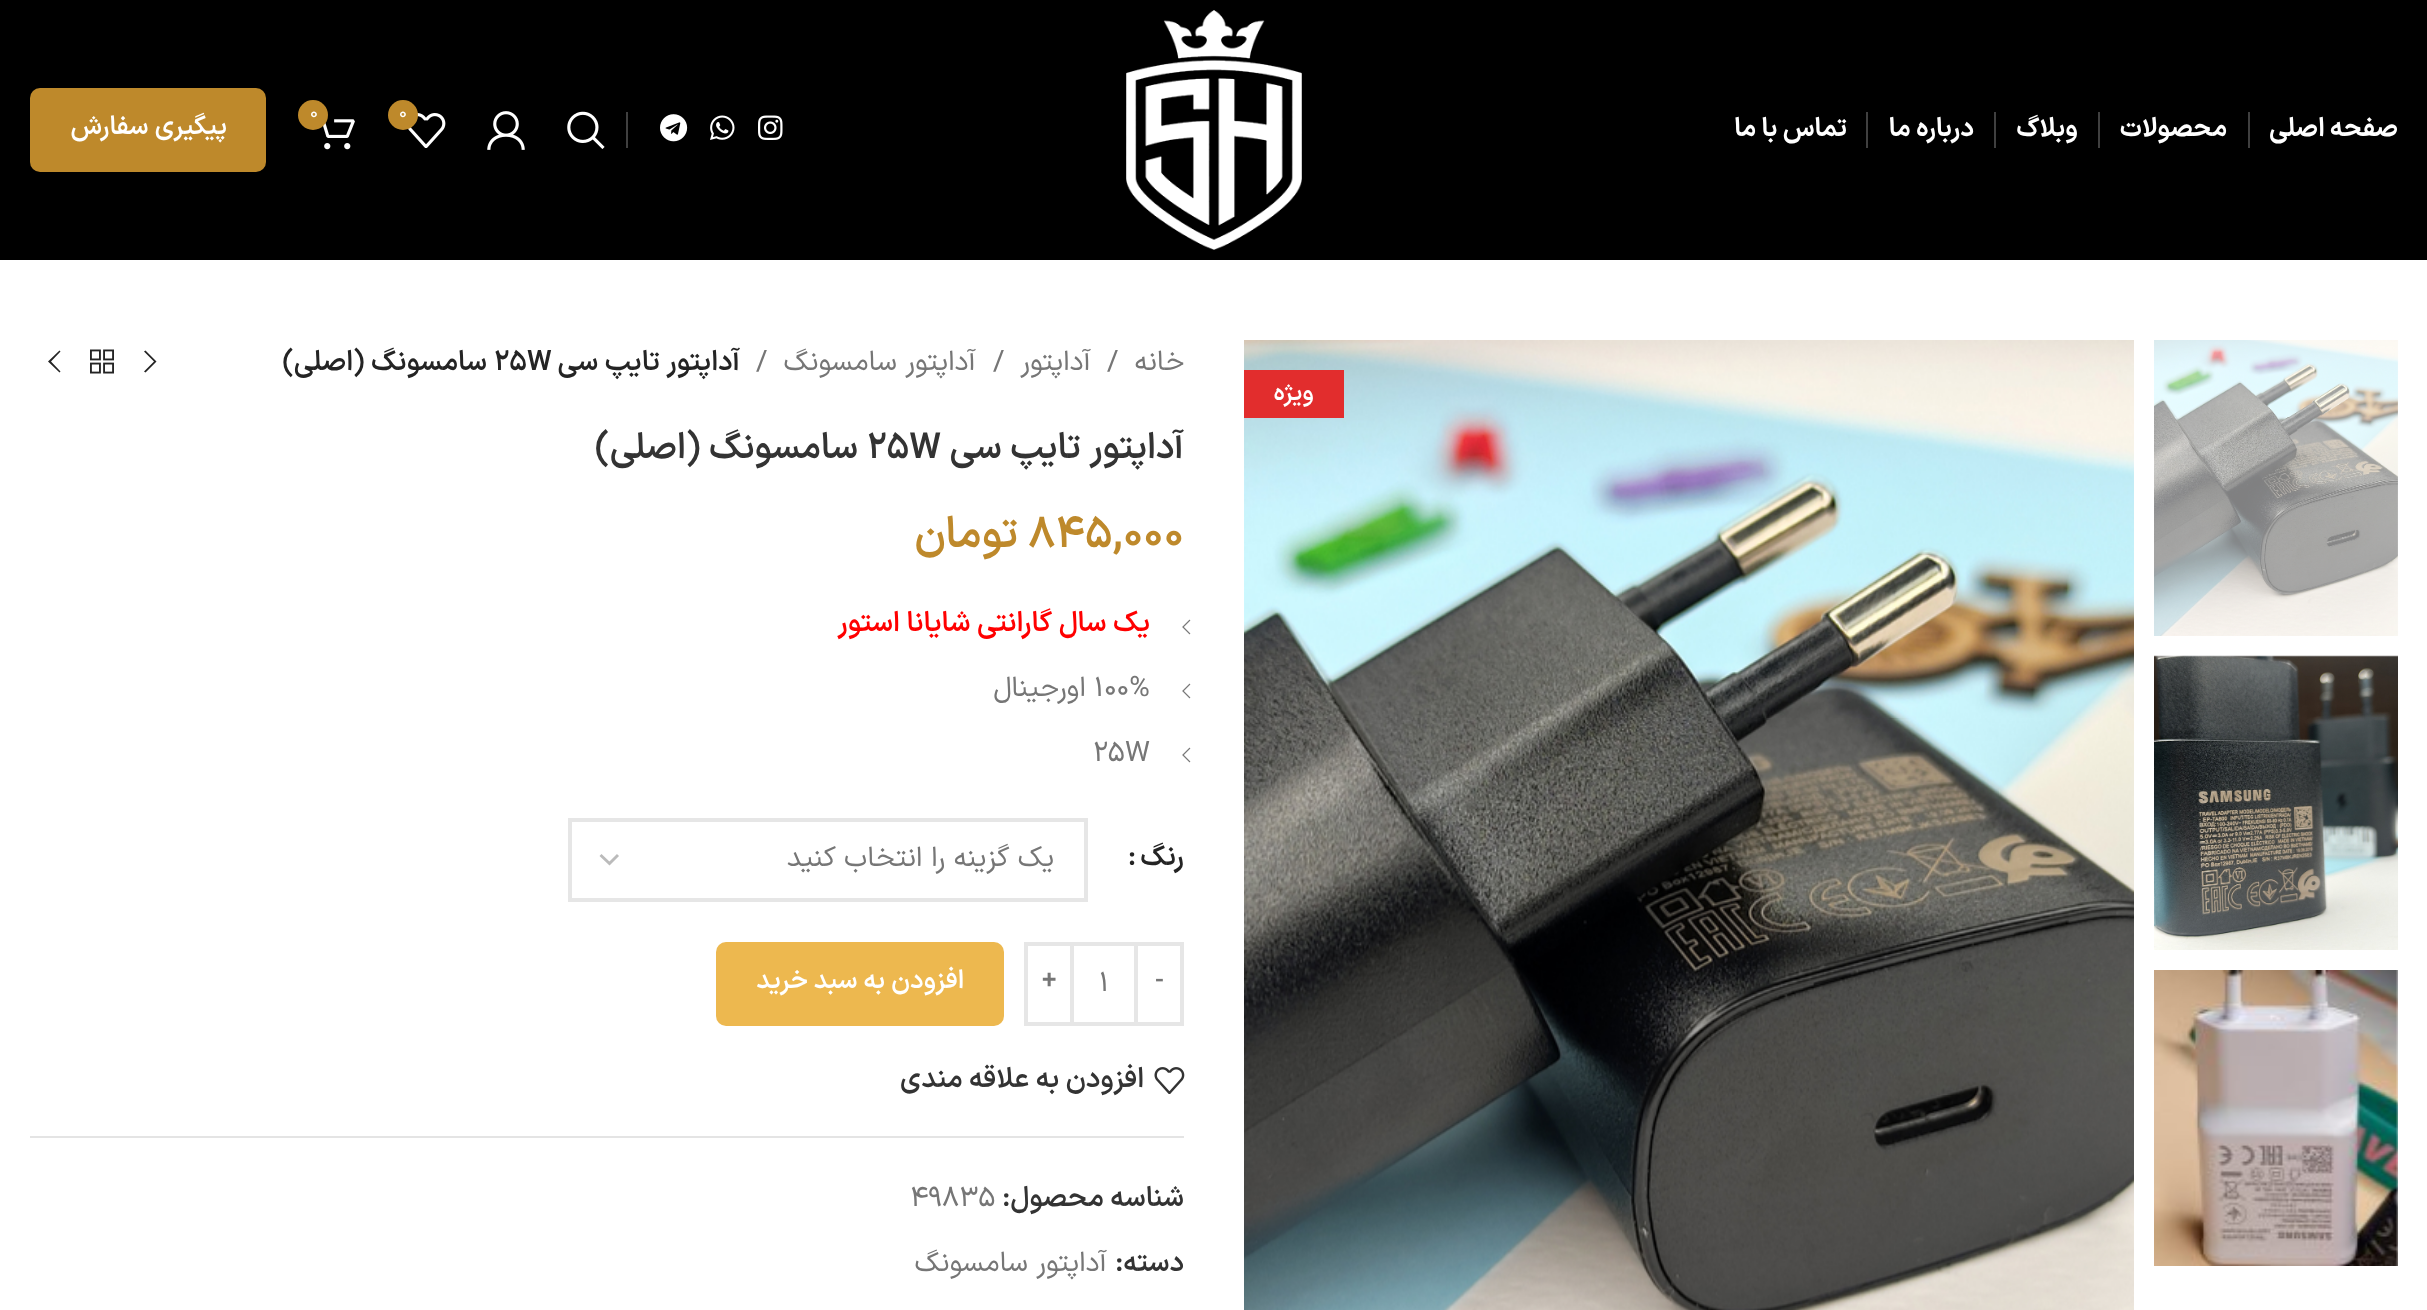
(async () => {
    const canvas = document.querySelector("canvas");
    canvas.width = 2427;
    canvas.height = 1310;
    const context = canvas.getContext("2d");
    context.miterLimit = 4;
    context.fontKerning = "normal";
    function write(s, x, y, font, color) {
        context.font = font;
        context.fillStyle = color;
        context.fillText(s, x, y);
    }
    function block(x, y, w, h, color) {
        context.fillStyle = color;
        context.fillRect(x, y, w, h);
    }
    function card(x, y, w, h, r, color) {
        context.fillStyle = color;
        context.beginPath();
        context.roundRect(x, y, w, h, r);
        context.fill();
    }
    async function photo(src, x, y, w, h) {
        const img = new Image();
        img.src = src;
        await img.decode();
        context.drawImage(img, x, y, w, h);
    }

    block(0, 0, 2427, 1310, "rgb(255, 255, 255)");
    block(0, 0, 2427, 260, "rgb(0, 0, 0)");
    context.direction = "rtl";
    write("صفحه اصلی", 2398, 136, "bold 26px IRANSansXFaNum", "rgb(255, 255, 255)");
    block(2248, 112, 2, 36, "rgb(64, 64, 64)");
    write("محصولات", 2227, 136, "bold 26px IRANSansXFaNum", "rgb(255, 255, 255)");
    block(2098, 112, 2, 36, "rgb(64, 64, 64)");
    write("وبلاگ", 2078, 136, "bold 26px IRANSansXFaNum", "rgb(255, 255, 255)");
    block(1994, 112, 2, 36, "rgb(64, 64, 64)");
    write("درباره ما", 1974, 136, "bold 26px IRANSansXFaNum", "rgb(255, 255, 255)");
    block(1866, 112, 2, 36, "rgb(64, 64, 64)");
    write("تماس با ما", 1847, 136, "bold 26px IRANSansXFaNum", "rgb(255, 255, 255)");
    await photo("media/1.png", 1126, 10, 176, 240);
    await photo("media/2.png", 758, 115, 25, 25);
    await photo("media/3.png", 710, 115, 25, 25);
    await photo("media/4.png", 660, 114, 28, 28);
    block(626, 112, 2, 36, "rgb(64, 64, 64)");
    await photo("media/5.png", 567, 111, 38, 38);
    await photo("media/6.png", 487, 111, 38, 39);
    await photo("media/7.png", 408, 113, 38, 35);
    context.fillStyle = "rgb(190, 137, 43)";
    context.beginPath();
    context.arc(403, 115, 15, 0, Math.PI * 2);
    context.fill();
    context.direction = "ltr";
    write("0", 399, 118, "18px IRANSansXFaNum", "rgb(255, 255, 255)");
    await photo("media/8.png", 323, 119, 32, 31);
    context.fillStyle = "rgb(190, 137, 43)";
    context.beginPath();
    context.arc(313, 115, 15, 0, Math.PI * 2);
    context.fill();
    write("0", 310, 118, "18px IRANSansXFaNum", "rgb(255, 255, 255)");
    card(30, 88, 236, 84, 10, "rgb(190, 137, 43)");
    context.direction = "rtl";
    write("پیگیری سفارش", 227, 134, "600 26px IRANSansXFaNum", "rgb(255, 255, 255)");
    await photo("media/9.png", 2154, 340, 244, 296);
    await photo("media/10.png", 2154, 655, 244, 295);
    await photo("media/11.png", 2154, 970, 244, 296);
    await photo("media/12.png", 1244, 340, 890, 970);
    block(1244, 370, 100, 48, "rgb(226, 45, 45)");
    write("ویژه", 1314, 400, "600 24px IRANSansXFaNum", "rgb(255, 255, 255)");
    write("خانه", 1184, 370, "28px IRANSansXFaNum", "rgb(118, 118, 118)");
    context.direction = "ltr";
    write("/", 1107, 370, "28px IRANSansXFaNum", "rgb(118, 118, 118)");
    context.direction = "rtl";
    write("آداپتور", 1091, 370, "28px IRANSansXFaNum", "rgb(118, 118, 118)");
    context.direction = "ltr";
    write("/", 993, 370, "28px IRANSansXFaNum", "rgb(118, 118, 118)");
    context.direction = "rtl";
    write("آداپتور سامسونگ", 976, 370, "28px IRANSansXFaNum", "rgb(118, 118, 118)");
    context.direction = "ltr";
    write("/", 756, 370, "28px IRANSansXFaNum", "rgb(118, 118, 118)");
    context.direction = "rtl";
    write("آداپتور تایپ سی", 740, 370, "600 28px IRANSansXFaNum", "rgb(36, 36, 36)");
    context.direction = "ltr";
    write("25W", 494, 370, "600 28px IRANSansXFaNum", "rgb(36, 36, 36)");
    context.direction = "rtl";
    write("سامسونگ (اصلی)", 487, 370, "600 28px IRANSansXFaNum", "rgb(36, 36, 36)");
    context.beginPath();
    context.moveTo(144, 351.5);
    context.lineTo(154, 361.5);
    context.lineTo(144, 371.5);
    context.lineTo(145.5, 372.5);
    context.lineTo(156.5, 361.5);
    context.lineTo(145.5, 350.5);
    context.closePath();
    context.fill();
    await photo("media/13.png", 90, 349, 24, 25);
    context.beginPath();
    context.moveTo(60.5, 351.5);
    context.lineTo(59.5, 350.5);
    context.lineTo(48, 361.5);
    context.lineTo(59.5, 372.5);
    context.lineTo(60.5, 371.5);
    context.lineTo(51, 361.5);
    context.closePath();
    context.fill();
    write("آداپتور تایپ سی", 1184, 458, "600 36px IRANSansXFaNum", "rgb(51, 51, 51)");
    context.direction = "ltr";
    write("25W", 867, 458, "600 36px IRANSansXFaNum", "rgb(51, 51, 51)");
    context.direction = "rtl";
    write("سامسونگ (اصلی)", 858, 458, "600 36px IRANSansXFaNum", "rgb(51, 51, 51)");
    context.direction = "ltr";
    write("845,000", 1028, 547, "600 43.5px IRANSansXFaNum", "rgb(190, 137, 43)");
    context.direction = "rtl";
    write("تومان", 1018, 547, "600 43.5px IRANSansXFaNum", "rgb(190, 137, 43)");
    await photo("media/14.png", 1182, 619, 9, 16);
    write("یک سال گارانتی شایانا استور", 1150, 631, "600 28px IRANSansXFaNum", "rgb(255, 0, 0)");
    await photo("media/14.png", 1182, 683, 9, 16);
    context.direction = "ltr";
    write("100%", 1094, 696, "28px IRANSansXFaNum", "rgb(118, 118, 118)");
    context.direction = "rtl";
    write("اورجینال", 1086, 696, "28px IRANSansXFaNum", "rgb(118, 118, 118)");
    await photo("media/14.png", 1182, 747, 9, 16);
    context.direction = "ltr";
    write("25W", 1093, 761, "28px IRANSansXFaNum", "rgb(118, 118, 118)");
    context.direction = "rtl";
    write("رنگ", 1184, 865, "600 28px IRANSansXFaNum", "rgb(36, 36, 36)");
    context.direction = "ltr";
    write(":", 1128, 865, "600 28px IRANSansXFaNum", "rgb(36, 36, 36)");
    context.beginPath();
    context.moveTo(600.5, 855);
    context.lineTo(609.5, 863.5);
    context.lineTo(618, 855);
    context.strokeStyle = "rgb(187, 187, 187)";
    context.lineWidth = 2.9;
    context.stroke();
    context.strokeStyle = "rgb(230, 230, 230)";
    context.lineWidth = 4;
    context.strokeRect(570, 820, 516, 80);
    context.direction = "rtl";
    write("یک گزینه را انتخاب کنید", 1054, 866, "28px IRANSansXFaNum", "rgb(118, 118, 118)");
    context.strokeRect(1136, 944, 46, 80);
    context.direction = "ltr";
    write("-", 1155, 988, "600 26px IRANSansXFaNum", "rgb(118, 118, 118)");
    block(1074, 942, 60, 4, "rgb(230, 230, 230)");
    block(1074, 1022, 60, 4, "rgb(230, 230, 230)");
    write("1", 1099, 991, "28px IRANSansXFaNum", "rgb(118, 118, 118)");
    context.strokeRect(1026, 944, 46, 80);
    write("+", 1042, 988, "600 26px IRANSansXFaNum", "rgb(118, 118, 118)");
    card(716, 942, 288, 84, 10, "rgb(237, 184, 79)");
    context.direction = "rtl";
    write("افزودن به سبد خرید", 964, 988, "600 26px IRANSansXFaNum", "rgb(255, 255, 255)");
    await photo("media/15.png", 1154, 1067, 31, 27);
    write("افزودن به علاقه مندی", 1144, 1087, "600 28px IRANSansXFaNum", "rgb(51, 51, 51)");
    block(30, 1136, 1154, 2, "rgb(228, 228, 228)");
    write("شناسه محصول:", 1184, 1206, "600 28px IRANSansXFaNum", "rgb(51, 51, 51)");
    context.direction = "ltr";
    write("49835", 910, 1206, "28px IRANSansXFaNum", "rgb(118, 118, 118)");
    context.direction = "rtl";
    write("دسته:", 1184, 1271, "600 28px IRANSansXFaNum", "rgb(51, 51, 51)");
    write("آداپتور سامسونگ", 1107, 1271, "28px IRANSansXFaNum", "rgb(118, 118, 118)");
})();
